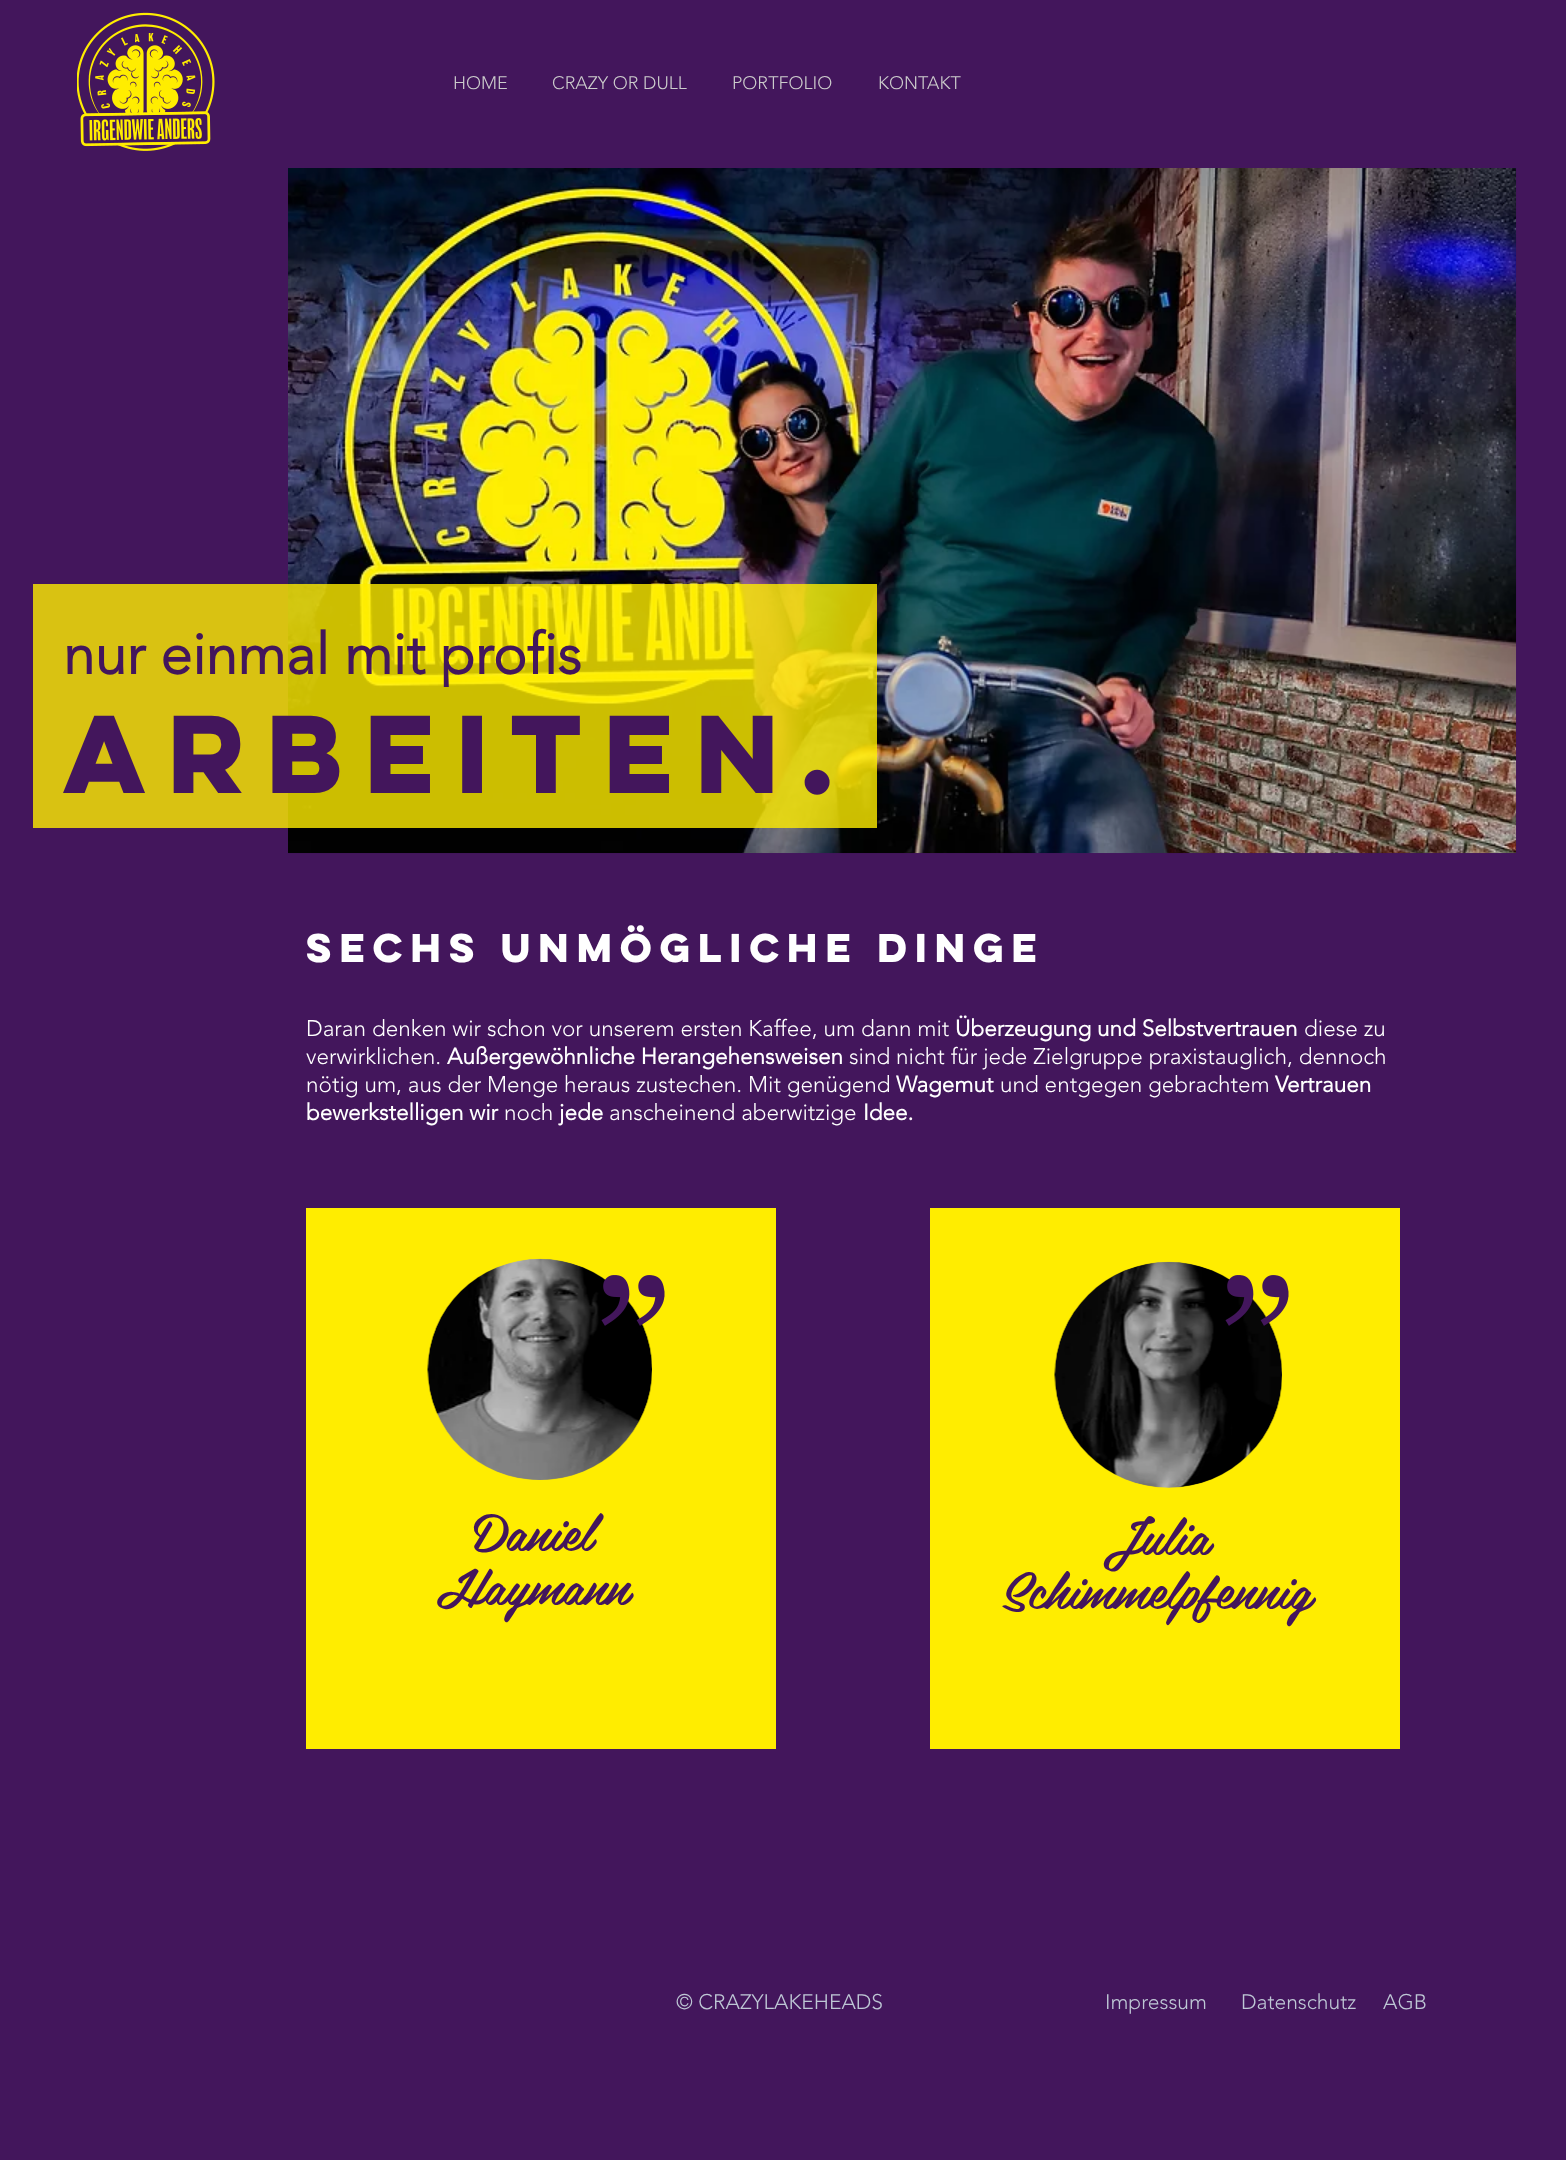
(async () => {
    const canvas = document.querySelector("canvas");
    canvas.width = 1566;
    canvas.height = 2160;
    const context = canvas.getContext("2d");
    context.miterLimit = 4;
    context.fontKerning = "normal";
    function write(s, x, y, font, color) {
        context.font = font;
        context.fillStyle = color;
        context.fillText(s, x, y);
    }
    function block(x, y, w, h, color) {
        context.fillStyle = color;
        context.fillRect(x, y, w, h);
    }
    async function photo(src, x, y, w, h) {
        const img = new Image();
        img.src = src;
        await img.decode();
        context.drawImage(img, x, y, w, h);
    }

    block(0, 0, 1566, 2160, "rgb(67, 22, 92)");
    await photo("media/1.png", 77, 12, 138, 139);
    write("HOME", 453, 89, "300 18px 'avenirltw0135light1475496'", "rgb(204, 204, 204)");
    write("CRAZY OR DULL", 552, 89, "300 18px 'avenirltw0135light1475496'", "rgb(204, 204, 204)");
    write("PORTFOLIO", 732, 89, "300 18px 'avenirltw0135light1475496'", "rgb(204, 204, 204)");
    write("KONTAKT", 878, 89, "300 18px 'avenirltw0135light1475496'", "rgb(204, 204, 204)");
    await photo("media/2.png", 288, 168, 1229, 686);
    block(33, 584, 844, 244, "rgba(255, 237, 0, 0.8)");
    write("nur einmal mit profis", 63, 674, "bold 57px 'avenirltw0135light1475496'", "rgb(67, 22, 92)");
    write("arbeiten.", 63, 793, "bold 99px 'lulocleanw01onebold'", "rgb(67, 22, 92)");
    write("SECHS UNMÖGLICHE DINGE", 306, 962, "bold 36px 'lulocleanw01onebold'", "rgb(255, 255, 255)");
    write("Daran denken wir schon vor unserem ersten Kaffee, um dann mit", 306, 1036, "300 22.5px 'avenirltw0135light1475496'", "rgb(255, 255, 255)");
    write("Überzeugung und Selbstvertrauen", 955, 1036, "bold 22.5px 'avenirltw0135light1475496'", "rgb(255, 255, 255)");
    write("diese zu", 1304, 1036, "300 22.5px 'avenirltw0135light1475496'", "rgb(255, 255, 255)");
    write("verwirklichen.", 306, 1064, "300 22.5px 'avenirltw0135light1475496'", "rgb(255, 255, 255)");
    write("Außergewöhnliche Herangehensweisen", 447, 1064, "bold 22.5px 'avenirltw0135light1475496'", "rgb(255, 255, 255)");
    write("sind nicht für jede Zielgruppe praxistauglich, dennoch", 849, 1064, "300 22.5px 'avenirltw0135light1475496'", "rgb(255, 255, 255)");
    write("nötig um, aus der Menge heraus zustechen. Mit genügend", 306, 1092, "300 22.5px 'avenirltw0135light1475496'", "rgb(255, 255, 255)");
    write("Wagemut", 896, 1092, "bold 22.5px 'avenirltw0135light1475496'", "rgb(255, 255, 255)");
    write("und entgegen gebrachtem", 1000, 1092, "300 22.5px 'avenirltw0135light1475496'", "rgb(255, 255, 255)");
    write("Vertrauen", 1275, 1092, "bold 22.5px 'avenirltw0135light1475496'", "rgb(255, 255, 255)");
    write("bewerkstelligen wir", 306, 1120, "bold 22.5px 'avenirltw0135light1475496'", "rgb(255, 255, 255)");
    write("noch", 504, 1120, "300 22.5px 'avenirltw0135light1475496'", "rgb(255, 255, 255)");
    write("jede", 559, 1120, "bold 22.5px 'avenirltw0135light1475496'", "rgb(255, 255, 255)");
    write("anscheinend aberwitzige", 609, 1120, "300 22.5px 'avenirltw0135light1475496'", "rgb(255, 255, 255)");
    write("Idee.", 863, 1120, "bold 22.5px 'avenirltw0135light1475496'", "rgb(255, 255, 255)");
    block(306, 1208, 470, 541, "rgb(255, 237, 0)");
    await photo("media/3.png", 427, 1258, 225, 222);
    await photo("media/4.png", 601, 1275, 64, 51);
    write("Daniel", 473, 1551, "51px 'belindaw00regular'", "rgb(67, 22, 92)");
    write("Haymann", 436, 1605, "51px 'belindaw00regular'", "rgb(67, 22, 92)");
    block(930, 1208, 470, 541, "rgb(255, 237, 0)");
    await photo("media/5.png", 1054, 1261, 228, 227);
    await photo("media/6.png", 1225, 1275, 64, 51);
    write("Julia", 1103, 1555, "51px 'belindaw00regular'", "rgb(67, 22, 92)");
    write("Schimmelpfennig", 1001, 1609, "51px 'belindaw00regular'", "rgb(67, 22, 92)");
    write("© CRAZYLAKEHEADS", 676, 2009, "300 21px 'avenirltw0135light1475496'", "rgb(190, 199, 213)");
    write("Impressum", 1105, 2009, "300 21px 'avenirltw0135light1475496'", "rgb(190, 199, 213)");
    write("Datenschutz", 1241, 2009, "300 21px 'avenirltw0135light1475496'", "rgb(190, 199, 213)");
    write("AGB", 1383, 2009, "300 21px 'avenirltw0135light1475496'", "rgb(190, 199, 213)");
})();
